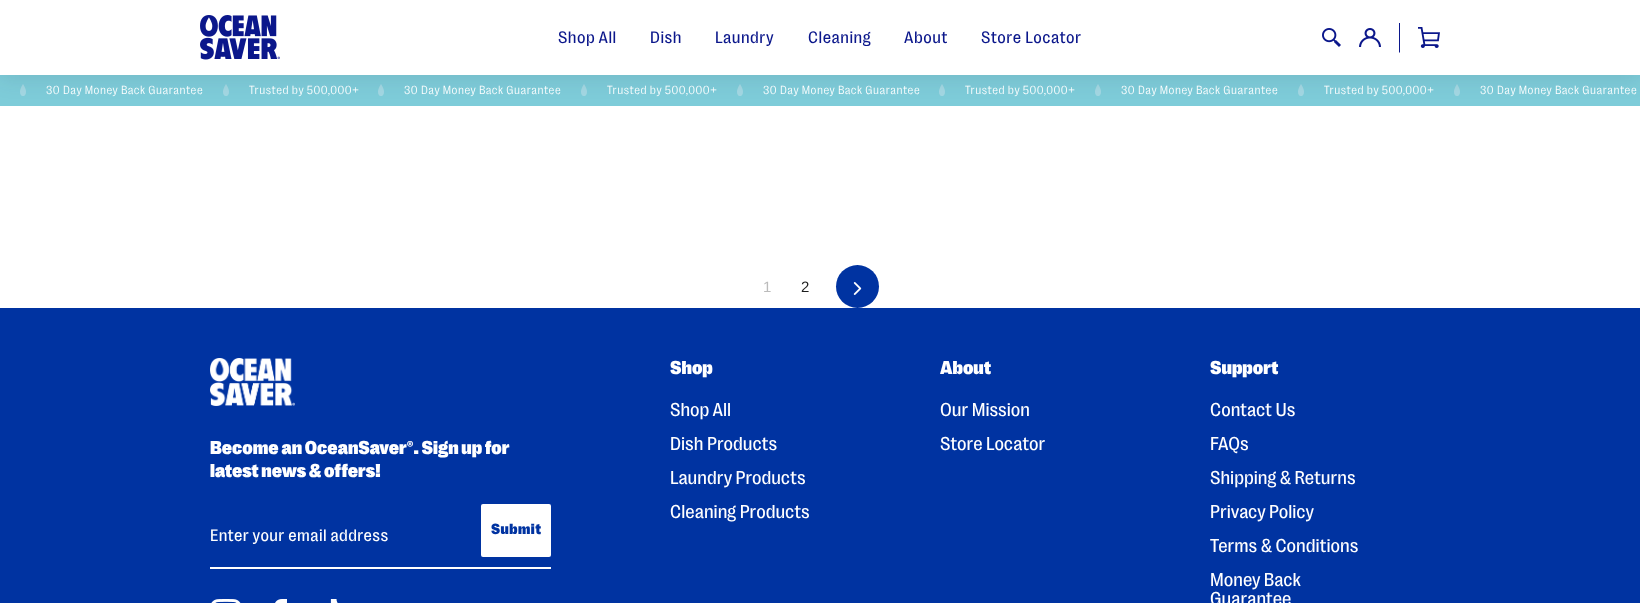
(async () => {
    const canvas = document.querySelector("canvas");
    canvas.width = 1640;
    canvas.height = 603;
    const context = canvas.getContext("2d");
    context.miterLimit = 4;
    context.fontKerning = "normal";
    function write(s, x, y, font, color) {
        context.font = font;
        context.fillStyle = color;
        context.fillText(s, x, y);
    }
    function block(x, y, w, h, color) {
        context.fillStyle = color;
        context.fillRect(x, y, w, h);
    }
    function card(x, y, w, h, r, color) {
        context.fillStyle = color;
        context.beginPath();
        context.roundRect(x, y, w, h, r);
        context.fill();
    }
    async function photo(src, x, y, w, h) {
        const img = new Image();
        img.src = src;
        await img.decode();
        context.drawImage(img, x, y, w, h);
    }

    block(0, 0, 1640, 603, "rgb(255, 255, 255)");
    block(0, 75, 1640, 31, "rgb(126, 204, 217)");
    await photo("media/5.png", 20, 84, 6, 12);
    await photo("media/5.png", 223, 84, 6, 12);
    await photo("media/5.png", 378, 84, 6, 12);
    await photo("media/5.png", 581, 84, 6, 12);
    await photo("media/5.png", 737, 84, 6, 12);
    await photo("media/5.png", 939, 84, 6, 12);
    await photo("media/5.png", 1095, 84, 6, 12);
    await photo("media/5.png", 1298, 84, 6, 12);
    await photo("media/5.png", 1454, 84, 6, 12);
    context.fillStyle = "rgba(29, 41, 62, 0.1)";
    context.filter = "blur(10px)";
    context.beginPath();
    context.rect(0, 5, 1640, 75);
    context.fill();
    context.filter = "none";
    block(0, 0, 1640, 75, "rgb(255, 255, 255)");
    await photo("media/1.png", 200, 15, 80, 45);
    context.letterSpacing = "0.5px";
    write("Shop All", 558, 43, "17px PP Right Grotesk", "rgb(11, 23, 139)");
    write("Dish", 650, 43, "17px PP Right Grotesk", "rgb(11, 23, 139)");
    write("Laundry", 715, 43, "17px PP Right Grotesk", "rgb(11, 23, 139)");
    write("Cleaning", 808, 43, "17px PP Right Grotesk", "rgb(11, 23, 139)");
    write("About", 904, 43, "17px PP Right Grotesk", "rgb(11, 23, 139)");
    write("Store Locator", 981, 43, "17px PP Right Grotesk", "rgb(11, 23, 139)");
    await photo("media/2.png", 1322, 28, 19, 19);
    context.beginPath();
    context.moveTo(1400, 23);
    context.lineTo(1400, 53);
    context.lineTo(1399, 52);
    context.lineTo(1399, 23);
    context.closePath();
    context.fill();
    await photo("media/3.png", 1359, 28, 22, 19);
    await photo("media/4.png", 1418, 27, 22, 21);
    write("30 Day Money Back Guarantee", 46, 94, "300 12px PP Right Grotesk", "rgb(255, 255, 255)");
    write("Trusted by 500,000+", 249, 94, "300 12px PP Right Grotesk", "rgb(255, 255, 255)");
    write("30 Day Money Back Guarantee", 404, 94, "300 12px PP Right Grotesk", "rgb(255, 255, 255)");
    write("Trusted by 500,000+", 607, 94, "300 12px PP Right Grotesk", "rgb(255, 255, 255)");
    write("30 Day Money Back Guarantee", 763, 94, "300 12px PP Right Grotesk", "rgb(255, 255, 255)");
    write("Trusted by 500,000+", 965, 94, "300 12px PP Right Grotesk", "rgb(255, 255, 255)");
    write("30 Day Money Back Guarantee", 1121, 94, "300 12px PP Right Grotesk", "rgb(255, 255, 255)");
    write("Trusted by 500,000+", 1324, 94, "300 12px PP Right Grotesk", "rgb(255, 255, 255)");
    write("30 Day Money Back Guarantee", 1480, 94, "300 12px PP Right Grotesk", "rgb(255, 255, 255)");
    write("1", 763, 292, "15px Liberation Sans", "rgb(187, 187, 187)");
    write("2", 801, 292, "15px Liberation Sans", "rgb(28, 29, 29)");
    context.fillStyle = "rgb(0, 51, 161)";
    context.beginPath();
    context.arc(857.5, 286.5, 21.5, 0, Math.PI * 2);
    context.fill();
    await photo("media/6.png", 853, 282, 9, 13);
    block(0, 308, 1640, 295, "rgb(0, 51, 161)");
    context.letterSpacing = "0px";
    write("Shop", 670, 374, "900 19px PP Right Grotesk", "rgb(255, 255, 255)");
    write("Shop All", 670, 416, "19px PP Right Grotesk", "rgb(255, 255, 255)");
    write("Dish Products", 670, 450, "19px PP Right Grotesk", "rgb(255, 255, 255)");
    write("Laundry Products", 670, 484, "19px PP Right Grotesk", "rgb(255, 255, 255)");
    write("Cleaning Products", 670, 518, "19px PP Right Grotesk", "rgb(255, 255, 255)");
    write("About", 940, 374, "900 19px PP Right Grotesk", "rgb(255, 255, 255)");
    write("Our Mission", 940, 416, "19px PP Right Grotesk", "rgb(255, 255, 255)");
    write("Store Locator", 940, 450, "19px PP Right Grotesk", "rgb(255, 255, 255)");
    write("Support", 1210, 374, "900 19px PP Right Grotesk", "rgb(255, 255, 255)");
    write("Contact Us", 1210, 416, "19px PP Right Grotesk", "rgb(255, 255, 255)");
    write("FAQs", 1210, 450, "19px PP Right Grotesk", "rgb(255, 255, 255)");
    write("Shipping & Returns", 1210, 484, "19px PP Right Grotesk", "rgb(255, 255, 255)");
    write("Privacy Policy", 1210, 518, "19px PP Right Grotesk", "rgb(255, 255, 255)");
    write("Terms & Conditions", 1210, 552, "19px PP Right Grotesk", "rgb(255, 255, 255)");
    write("Money Back", 1210, 586, "19px PP Right Grotesk", "rgb(255, 255, 255)");
    write("Guarantee", 1210, 605, "19px PP Right Grotesk", "rgb(255, 255, 255)");
    await photo("media/7.png", 210, 358, 85, 48);
    write("Become an OceanSaver®. Sign up for", 210, 454, "900 19px PP Right Grotesk", "rgb(255, 255, 255)");
    write("latest news & offers!", 210, 477, "900 19px PP Right Grotesk", "rgb(255, 255, 255)");
    block(210, 567, 341, 2, "rgb(255, 255, 255)");
    context.letterSpacing = "0.4px";
    write("Enter your email address", 210, 541, "17px PP Right Grotesk", "rgb(255, 255, 255)");
    card(481, 504, 70, 53, 2, "rgb(255, 255, 255)");
    context.letterSpacing = "0.5px";
    write("Submit", 491, 534, "900 15px PP Right Grotesk", "rgb(0, 51, 161)");
    await photo("media/8.png", 211, 599, 30, 4);
    await photo("media/9.png", 275, 599, 12, 4);
    await photo("media/10.png", 330, 599, 8, 4);
})();
